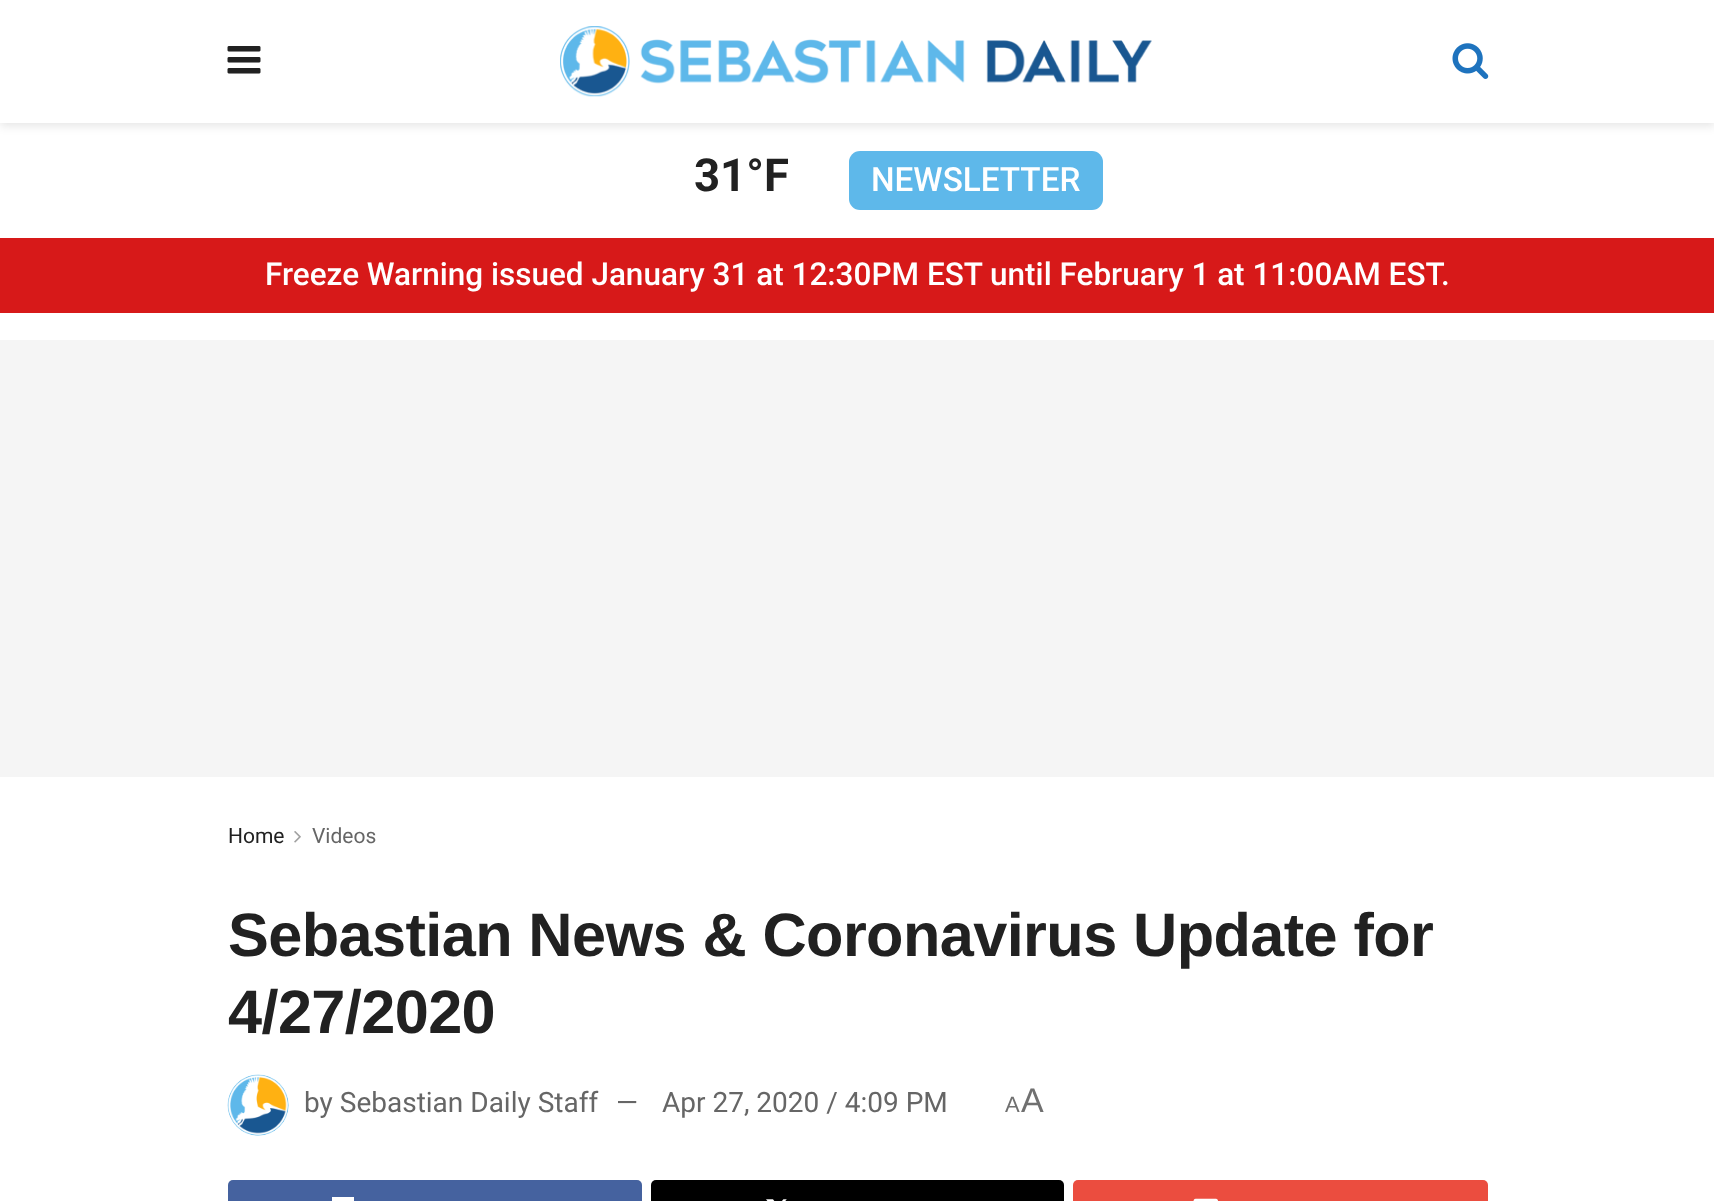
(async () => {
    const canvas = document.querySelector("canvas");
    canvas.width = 1714;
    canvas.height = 1201;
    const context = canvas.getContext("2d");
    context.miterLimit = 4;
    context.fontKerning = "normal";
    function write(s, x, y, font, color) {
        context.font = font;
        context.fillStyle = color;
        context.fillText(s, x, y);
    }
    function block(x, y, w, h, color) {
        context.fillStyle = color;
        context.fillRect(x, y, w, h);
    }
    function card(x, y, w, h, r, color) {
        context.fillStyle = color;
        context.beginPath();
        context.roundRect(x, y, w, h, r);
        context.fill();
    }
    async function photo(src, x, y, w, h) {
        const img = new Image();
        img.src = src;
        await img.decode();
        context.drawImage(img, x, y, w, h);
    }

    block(0, 0, 1714, 1201, "rgb(255, 255, 255)");
    context.fillStyle = "rgba(0, 0, 0, 0.1)";
    context.filter = "blur(5px)";
    context.beginPath();
    context.rect(0, 4, 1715, 122);
    context.fill();
    context.filter = "none";
    block(0, 0, 1714, 123, "rgb(255, 255, 255)");
    await photo("media/1.png", 227, 46, 34, 28);
    await photo("media/2.png", 560, 26, 592, 71);
    await photo("media/3.png", 1452, 43, 37, 36);
    write("31°F", 694, 191, "bold 45.5px Roboto", "rgb(33, 33, 33)");
    card(849, 151, 254, 59, 11, "rgb(94, 184, 234)");
    write("NEWSLETTER", 871, 191, "500 33.25px Roboto", "rgb(255, 255, 255)");
    block(0, 238, 1714, 75, "rgb(215, 25, 25)");
    write("Freeze Warning issued January 31 at 12:30PM EST until February 1 at 11:00AM EST.", 265, 285, "500 31.5px Roboto", "rgb(255, 255, 255)");
    block(0, 340, 1714, 437, "rgb(245, 245, 245)");
    write("Home", 228, 843, "21px Roboto", "rgb(33, 33, 33)");
    await photo("media/4.png", 294, 831, 7, 12);
    write("Videos", 312, 843, "21px Roboto", "rgb(102, 102, 102)");
    context.letterSpacing = "-0.6px";
    write("Sebastian News & Coronavirus Update for", 228, 956, "bold 61.25px Liberation Sans", "rgb(33, 33, 33)");
    write("4/27/2020", 228, 1033, "bold 61.25px Liberation Sans", "rgb(33, 33, 33)");
    await photo("media/5.png", 227, 1074, 62, 62);
    context.letterSpacing = "0px";
    write("by Sebastian Daily Staff", 304, 1112, "28px Roboto", "rgb(102, 102, 102)");
    write("—", 616, 1112, "28px Roboto", "rgb(102, 102, 102)");
    write("Apr 27, 2020 / 4:09 PM", 662, 1112, "28px Roboto", "rgb(102, 102, 102)");
    write("A", 1005, 1112, "22px Liberation Sans", "rgb(112, 112, 112)");
    write("A", 1021, 1112, "34px Liberation Sans", "rgb(112, 112, 112)");
    card(228, 1180, 414, 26, 5, "rgb(69, 98, 159)");
    block(332, 1197, 22, 4, "rgb(255, 255, 255)");
    card(651, 1180, 413, 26, 5, "rgb(0, 0, 0)");
    await photo("media/6.png", 766, 1199, 21, 2);
    card(1073, 1180, 415, 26, 5, "rgb(235, 77, 63)");
    await photo("media/7.png", 1193, 1198, 25, 3);
})();
